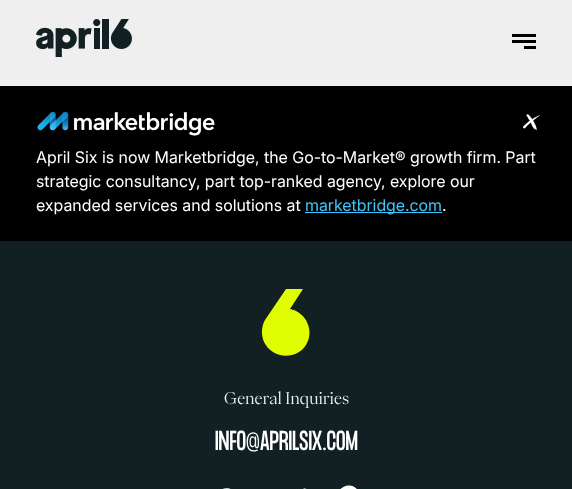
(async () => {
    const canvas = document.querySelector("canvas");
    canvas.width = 572;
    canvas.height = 489;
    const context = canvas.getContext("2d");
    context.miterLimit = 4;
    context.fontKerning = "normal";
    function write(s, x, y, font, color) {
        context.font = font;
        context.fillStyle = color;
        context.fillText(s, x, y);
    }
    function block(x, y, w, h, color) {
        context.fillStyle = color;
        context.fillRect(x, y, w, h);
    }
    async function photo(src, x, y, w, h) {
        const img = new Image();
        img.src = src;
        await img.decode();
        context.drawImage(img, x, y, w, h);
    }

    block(0, 0, 572, 489, "rgb(239, 239, 239)");
    await photo("media/1.png", 36, 19, 96, 38);
    block(512, 34, 24, 3, "rgb(0, 0, 0)");
    block(512, 40, 24, 3, "rgb(0, 0, 0)");
    block(524, 46, 12, 3, "rgb(0, 0, 0)");
    block(0, 86, 572, 155, "rgb(0, 0, 0)");
    await photo("media/2.png", 37, 111, 178, 25);
    await photo("media/3.png", 523, 114, 17, 16);
    write("April Six is now Marketbridge, the Go-to-Market® growth firm. Part", 36, 163, "16px Inter", "rgb(255, 255, 255)");
    write("strategic consultancy, part top-ranked agency, explore our", 36, 187, "16px Inter", "rgb(255, 255, 255)");
    write("expanded services and solutions at", 36, 211, "16px Inter", "rgb(255, 255, 255)");
    block(305, 212, 137, 1, "rgb(63, 197, 252)");
    write("marketbridge.com", 305, 211, "16px Inter", "rgb(63, 197, 252)");
    write(".", 442, 211, "16px Inter", "rgb(255, 255, 255)");
    block(0, 241, 572, 248, "rgb(18, 32, 35)");
    context.fillStyle = "rgb(225, 253, 1)";
    context.beginPath();
    context.moveTo(306, 345);
    context.bezierCurveTo(299, 356, 284, 359, 273, 352);
    context.bezierCurveTo(262, 345, 259, 331, 265, 320);
    context.lineTo(286, 289);
    context.lineTo(303, 289);
    context.lineTo(290, 309);
    context.bezierCurveTo(306, 312, 315, 331, 306, 345);
    context.closePath();
    context.fill();
    write("General Inquiries", 224, 404, "16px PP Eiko", "rgb(239, 239, 239)");
    write("INFO@APRILSIX.COM", 215, 450, "24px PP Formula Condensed", "rgb(255, 255, 255)");
    await photo("media/4.png", 222, 488, 9, 1);
    await photo("media/5.png", 303, 488, 4, 1);
    await photo("media/6.png", 340, 485, 17, 4);
})();
